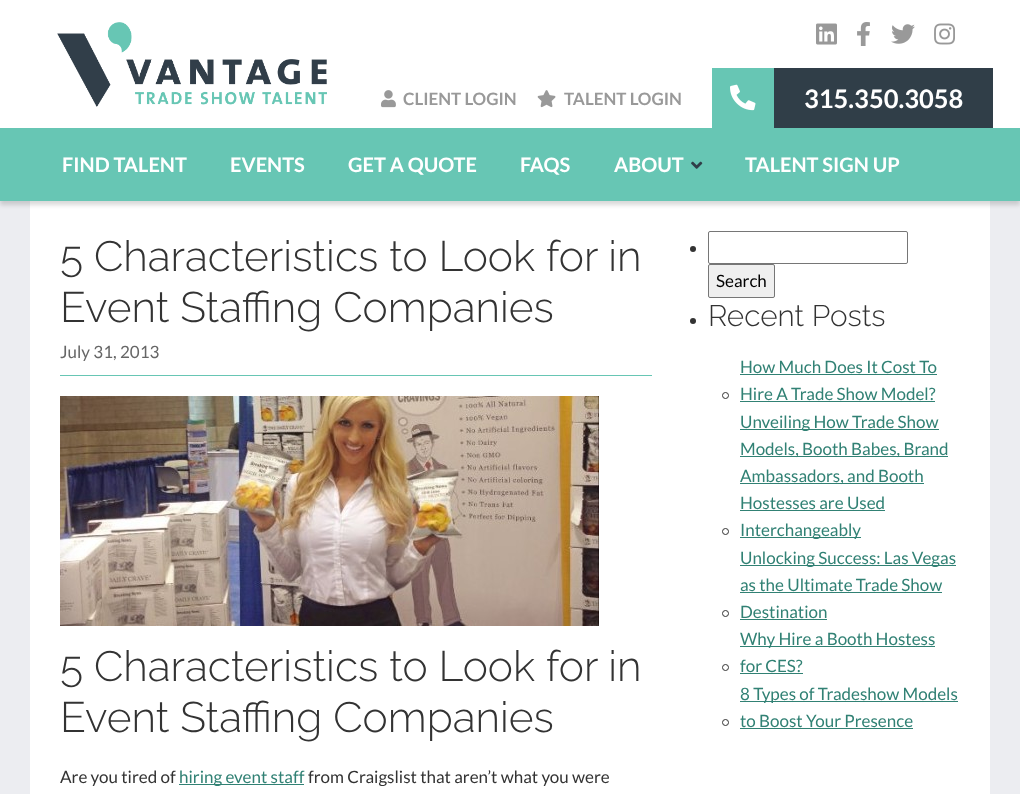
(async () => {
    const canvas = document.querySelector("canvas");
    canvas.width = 1020;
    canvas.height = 794;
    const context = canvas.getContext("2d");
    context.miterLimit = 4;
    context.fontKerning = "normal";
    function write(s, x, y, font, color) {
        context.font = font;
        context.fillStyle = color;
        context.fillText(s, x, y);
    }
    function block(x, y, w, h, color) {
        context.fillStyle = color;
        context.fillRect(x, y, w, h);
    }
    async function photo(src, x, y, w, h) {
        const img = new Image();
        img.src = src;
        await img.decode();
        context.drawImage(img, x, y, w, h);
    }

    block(0, 0, 1020, 794, "rgb(236, 237, 241)");
    block(0, 0, 1020, 128, "rgb(255, 255, 255)");
    await photo("media/1.png", 57, 22, 270, 85);
    await photo("media/2.png", 816, 23, 21, 22);
    await photo("media/3.png", 857, 22, 13, 24);
    await photo("media/4.png", 891, 24, 24, 20);
    await photo("media/5.png", 934, 23, 21, 22);
    block(774, 68, 219, 60, "rgb(48, 62, 72)");
    await photo("media/6.png", 381, 90, 15, 18);
    write("CLIENT LOGIN", 403, 105, "bold 17px Lato", "rgb(153, 153, 153)");
    await photo("media/7.png", 537, 90, 19, 18);
    write("TALENT LOGIN", 564, 105, "bold 17px Lato", "rgb(153, 153, 153)");
    block(712, 68, 62, 60, "rgb(103, 198, 180)");
    await photo("media/8.png", 730, 84, 26, 27);
    write("315.350.3058", 804, 108, "bold 25.5px Lato", "rgb(255, 255, 255)");
    block(30, 201, 960, 593, "rgb(255, 255, 255)");
    context.fillStyle = "rgba(0, 0, 0, 0.15)";
    context.filter = "blur(2px)";
    context.beginPath();
    context.rect(0, 132, 1020, 73);
    context.fill();
    context.filter = "none";
    block(0, 128, 1020, 73, "rgb(103, 198, 180)");
    write("FIND TALENT", 62, 172, "bold 20px Lato", "rgb(255, 255, 255)");
    write("EVENTS", 230, 172, "bold 20px Lato", "rgb(255, 255, 255)");
    write("GET A QUOTE", 348, 172, "bold 20px Lato", "rgb(255, 255, 255)");
    write("FAQS", 520, 172, "bold 20px Lato", "rgb(255, 255, 255)");
    write("ABOUT", 614, 172, "bold 20px Lato", "rgb(255, 255, 255)");
    await photo("media/9.png", 691, 161, 12, 8);
    write("TALENT SIGN UP", 745, 172, "bold 20px Lato", "rgb(255, 255, 255)");
    block(60, 375, 592, 1, "rgb(103, 198, 180)");
    write("5 Characteristics to Look for in", 60, 271, "300 42.5px Raleway", "rgb(51, 51, 51)");
    write("Event Staffing Companies", 60, 322, "300 42.5px Raleway", "rgb(51, 51, 51)");
    write("July 31, 2013", 60, 358, "17px Lato", "rgb(102, 102, 102)");
    await photo("media/10.png", 60, 396, 539, 230);
    write("5 Characteristics to Look for in", 60, 681, "300 42.5px Raleway", "rgb(51, 51, 51)");
    write("Event Staffing Companies", 60, 732, "300 42.5px Raleway", "rgb(51, 51, 51)");
    write("Are you tired of", 60, 783, "17px Lato", "rgb(51, 51, 51)");
    block(179, 784, 125, 1, "rgb(49, 129, 116)");
    write("hiring event staff", 179, 783, "17px Lato", "rgb(49, 129, 116)");
    write("from Craigslist that aren’t what you were", 308, 783, "17px Lato", "rgb(51, 51, 51)");
    context.beginPath();
    context.arc(693, 249, 3, 0, Math.PI * 2);
    context.fill();
    context.beginPath();
    context.roundRect(708.5, 231.5, 199, 32, 1.5);
    context.strokeStyle = "rgb(118, 118, 118)";
    context.stroke();
    context.fillStyle = "rgb(239, 239, 239)";
    context.beginPath();
    context.roundRect(708.5, 264.5, 66, 33, 1.5);
    context.fill();
    context.stroke();
    write("Search", 716, 287, "17px Lato", "rgb(0, 0, 0)");
    context.fillStyle = "rgb(51, 51, 51)";
    context.beginPath();
    context.arc(693, 321, 3, 0, Math.PI * 2);
    context.fill();
    write("Recent Posts", 708, 326, "300 29.75px Raleway", "rgb(51, 51, 51)");
    context.beginPath();
    context.arc(725.5, 395.5, 3, 0, Math.PI * 2);
    context.strokeStyle = "rgb(51, 51, 51)";
    context.stroke();
    write("How Much Does It Cost To", 740, 373, "17px Lato", "rgb(49, 129, 116)");
    block(740, 374, 197, 1, "rgb(49, 129, 116)");
    write("Hire A Trade Show Model?", 740, 400, "17px Lato", "rgb(49, 129, 116)");
    block(740, 401, 195, 1, "rgb(49, 129, 116)");
    context.beginPath();
    context.arc(725.5, 531.5, 3, 0, Math.PI * 2);
    context.stroke();
    block(740, 429, 199, 1, "rgb(49, 129, 116)");
    write("Unveiling How Trade Show", 740, 428, "17px Lato", "rgb(49, 129, 116)");
    block(740, 456, 208, 1, "rgb(49, 129, 116)");
    write("Models, Booth Babes, Brand", 740, 455, "17px Lato", "rgb(49, 129, 116)");
    block(740, 483, 184, 1, "rgb(49, 129, 116)");
    write("Ambassadors, and Booth", 740, 482, "17px Lato", "rgb(49, 129, 116)");
    write("Hostesses are Used", 740, 509, "17px Lato", "rgb(49, 129, 116)");
    block(740, 510, 145, 1, "rgb(49, 129, 116)");
    block(740, 537, 121, 1, "rgb(49, 129, 116)");
    write("Interchangeably", 740, 536, "17px Lato", "rgb(49, 129, 116)");
    context.beginPath();
    context.arc(725.5, 613.5, 3, 0, Math.PI * 2);
    context.stroke();
    block(740, 565, 216, 1, "rgb(49, 129, 116)");
    write("Unlocking Success: Las Vegas", 740, 564, "17px Lato", "rgb(49, 129, 116)");
    write("as the Ultimate Trade Show", 740, 591, "17px Lato", "rgb(49, 129, 116)");
    block(740, 592, 202, 1, "rgb(49, 129, 116)");
    write("Destination", 740, 618, "17px Lato", "rgb(49, 129, 116)");
    block(740, 619, 87, 1, "rgb(49, 129, 116)");
    context.beginPath();
    context.arc(725.5, 667.5, 3, 0, Math.PI * 2);
    context.stroke();
    block(740, 646, 195, 1, "rgb(49, 129, 116)");
    write("Why Hire a Booth Hostess", 740, 645, "17px Lato", "rgb(49, 129, 116)");
    write("for CES?", 740, 672, "17px Lato", "rgb(49, 129, 116)");
    block(740, 673, 63, 1, "rgb(49, 129, 116)");
    context.beginPath();
    context.arc(725.5, 722.5, 3, 0, Math.PI * 2);
    context.stroke();
    block(740, 701, 218, 1, "rgb(49, 129, 116)");
    write("8 Types of Tradeshow Models", 740, 700, "17px Lato", "rgb(49, 129, 116)");
    write("to Boost Your Presence", 740, 727, "17px Lato", "rgb(49, 129, 116)");
    block(740, 728, 173, 1, "rgb(49, 129, 116)");
})();
